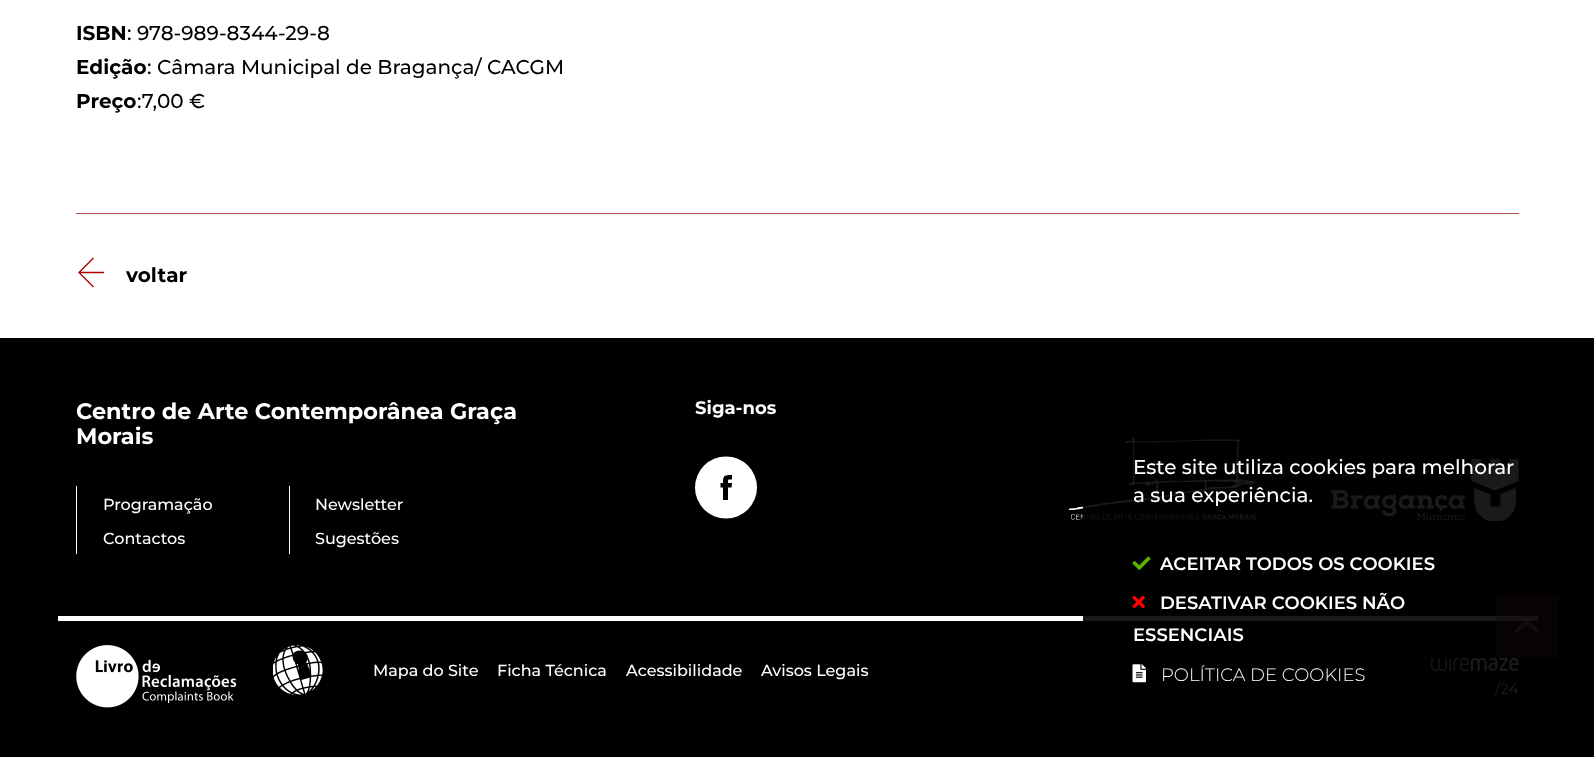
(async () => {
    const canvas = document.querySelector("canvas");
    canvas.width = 1594;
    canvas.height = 757;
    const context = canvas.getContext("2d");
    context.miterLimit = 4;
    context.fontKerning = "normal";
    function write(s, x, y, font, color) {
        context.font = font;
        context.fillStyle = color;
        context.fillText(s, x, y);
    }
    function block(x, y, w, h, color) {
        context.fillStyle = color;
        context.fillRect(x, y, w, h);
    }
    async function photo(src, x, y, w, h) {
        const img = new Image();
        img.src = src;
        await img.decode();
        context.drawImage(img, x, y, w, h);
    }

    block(0, 0, 1594, 757, "rgb(255, 255, 255)");
    write("ISBN", 76, 40, "100 20px Montserrat", "rgb(0, 0, 0)");
    write(": 978-989-8344-29-8", 127, 40, "100 20px 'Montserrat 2'", "rgb(0, 0, 0)");
    write("Edição", 76, 74, "100 20px Montserrat", "rgb(0, 0, 0)");
    write(": Câmara Municipal de Bragança/ CACGM", 147, 74, "100 20px 'Montserrat 2'", "rgb(0, 0, 0)");
    write("Preço", 76, 108, "100 20px Montserrat", "rgb(0, 0, 0)");
    write(":7,00 €", 137, 108, "100 20px 'Montserrat 2'", "rgb(0, 0, 0)");
    block(76, 213, 1443, 1, "rgb(174, 73, 70)");
    context.beginPath();
    context.moveTo(104, 272.5);
    context.lineTo(79, 272.5);
    context.moveTo(93.5, 287);
    context.lineTo(79, 272.5);
    context.lineTo(93.5, 258);
    context.strokeStyle = "rgb(170, 0, 0)";
    context.lineWidth = 1.3;
    context.stroke();
    write("voltar", 126, 282, "100 20px Montserrat", "rgb(0, 0, 0)");
    block(0, 338, 1594, 419, "rgb(0, 0, 0)");
    block(1495, 595, 63, 63, "rgb(6, 3, 2)");
    write("Centro de Arte Contemporânea Graça", 76, 419, "100 22.4px Montserrat", "rgb(255, 255, 255)");
    write("Morais", 76, 444, "100 22.4px Montserrat", "rgb(255, 255, 255)");
    block(76, 486, 1, 68, "rgb(255, 255, 255)");
    write("Programação", 103, 510, "100 16px 'Montserrat 2'", "rgb(255, 255, 255)");
    write("Contactos", 103, 544, "100 16px 'Montserrat 2'", "rgb(255, 255, 255)");
    block(289, 486, 1, 68, "rgb(255, 255, 255)");
    write("Newsletter", 315, 510, "100 16px 'Montserrat 2'", "rgb(255, 255, 255)");
    write("Sugestões", 315, 544, "100 16px 'Montserrat 2'", "rgb(255, 255, 255)");
    write("Siga-nos", 695, 414, "100 18px Montserrat", "rgb(255, 255, 255)");
    context.beginPath();
    context.arc(726, 487.5, 31, 0, Math.PI * 2);
    context.fill();
    context.fillStyle = "rgb(0, 0, 0)";
    context.beginPath();
    context.moveTo(728, 500);
    context.lineTo(723, 500);
    context.lineTo(723, 487.5);
    context.lineTo(720.5, 487.5);
    context.lineTo(720.5, 483);
    context.lineTo(723, 483);
    context.bezierCurveTo(723, 475, 724.5, 475, 732, 475);
    context.lineTo(732, 479.5);
    context.bezierCurveTo(728, 479.5, 728, 479, 728, 483);
    context.lineTo(732, 483);
    context.lineTo(731.5, 487.5);
    context.lineTo(728, 487.5);
    context.closePath();
    context.fill();
    await photo("media/1.png", 1069, 438, 187, 83);
    await photo("media/2.png", 1331, 459, 188, 62);
    block(58, 616, 1025, 5, "rgb(255, 255, 255)");
    block(1083, 616, 412, 5, "rgb(25, 25, 25)");
    block(1495, 616, 43, 5, "rgb(23, 19, 19)");
    await photo("media/3.png", 76, 645, 160, 63);
    await photo("media/4.png", 273, 645, 50, 50);
    write("Mapa do Site", 373, 676, "100 16px 'Montserrat 2'", "rgb(255, 255, 255)");
    write("Ficha Técnica", 497, 676, "100 16px 'Montserrat 2'", "rgb(255, 255, 255)");
    write("Acessibilidade", 626, 676, "100 16px 'Montserrat 2'", "rgb(255, 255, 255)");
    write("Avisos Legais", 761, 676, "100 16px 'Montserrat 2'", "rgb(255, 255, 255)");
    await photo("media/5.png", 1431, 658, 88, 13);
    write("/24", 1495, 694, "100 15px 'Montserrat 2'", "rgb(25, 25, 25)");
    write("Este site utiliza cookies para melhorar", 1133, 474, "100 20px 'Montserrat 2'", "rgb(255, 255, 255)");
    write("a sua experiência.", 1133, 502, "100 20px 'Montserrat 2'", "rgb(255, 255, 255)");
    await photo("media/6.png", 1132, 556, 19, 14);
    write("ACEITAR TODOS OS COOKIES", 1160, 570, "100 18px 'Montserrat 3'", "rgb(255, 255, 255)");
    await photo("media/7.png", 1132, 595, 13, 14);
    write("DESATIVAR COOKIES NÃO", 1160, 609, "100 18px 'Montserrat 3'", "rgb(255, 255, 255)");
    write("ESSENCIAIS", 1133, 641, "100 18px 'Montserrat 3'", "rgb(255, 255, 255)");
    await photo("media/8.png", 1132, 664, 14, 19);
    write("POLÍTICA DE COOKIES", 1161, 681, "100 18px 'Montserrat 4'", "rgb(255, 255, 255)");
    await photo("media/9.png", 1515, 620, 24, 13);
})();
